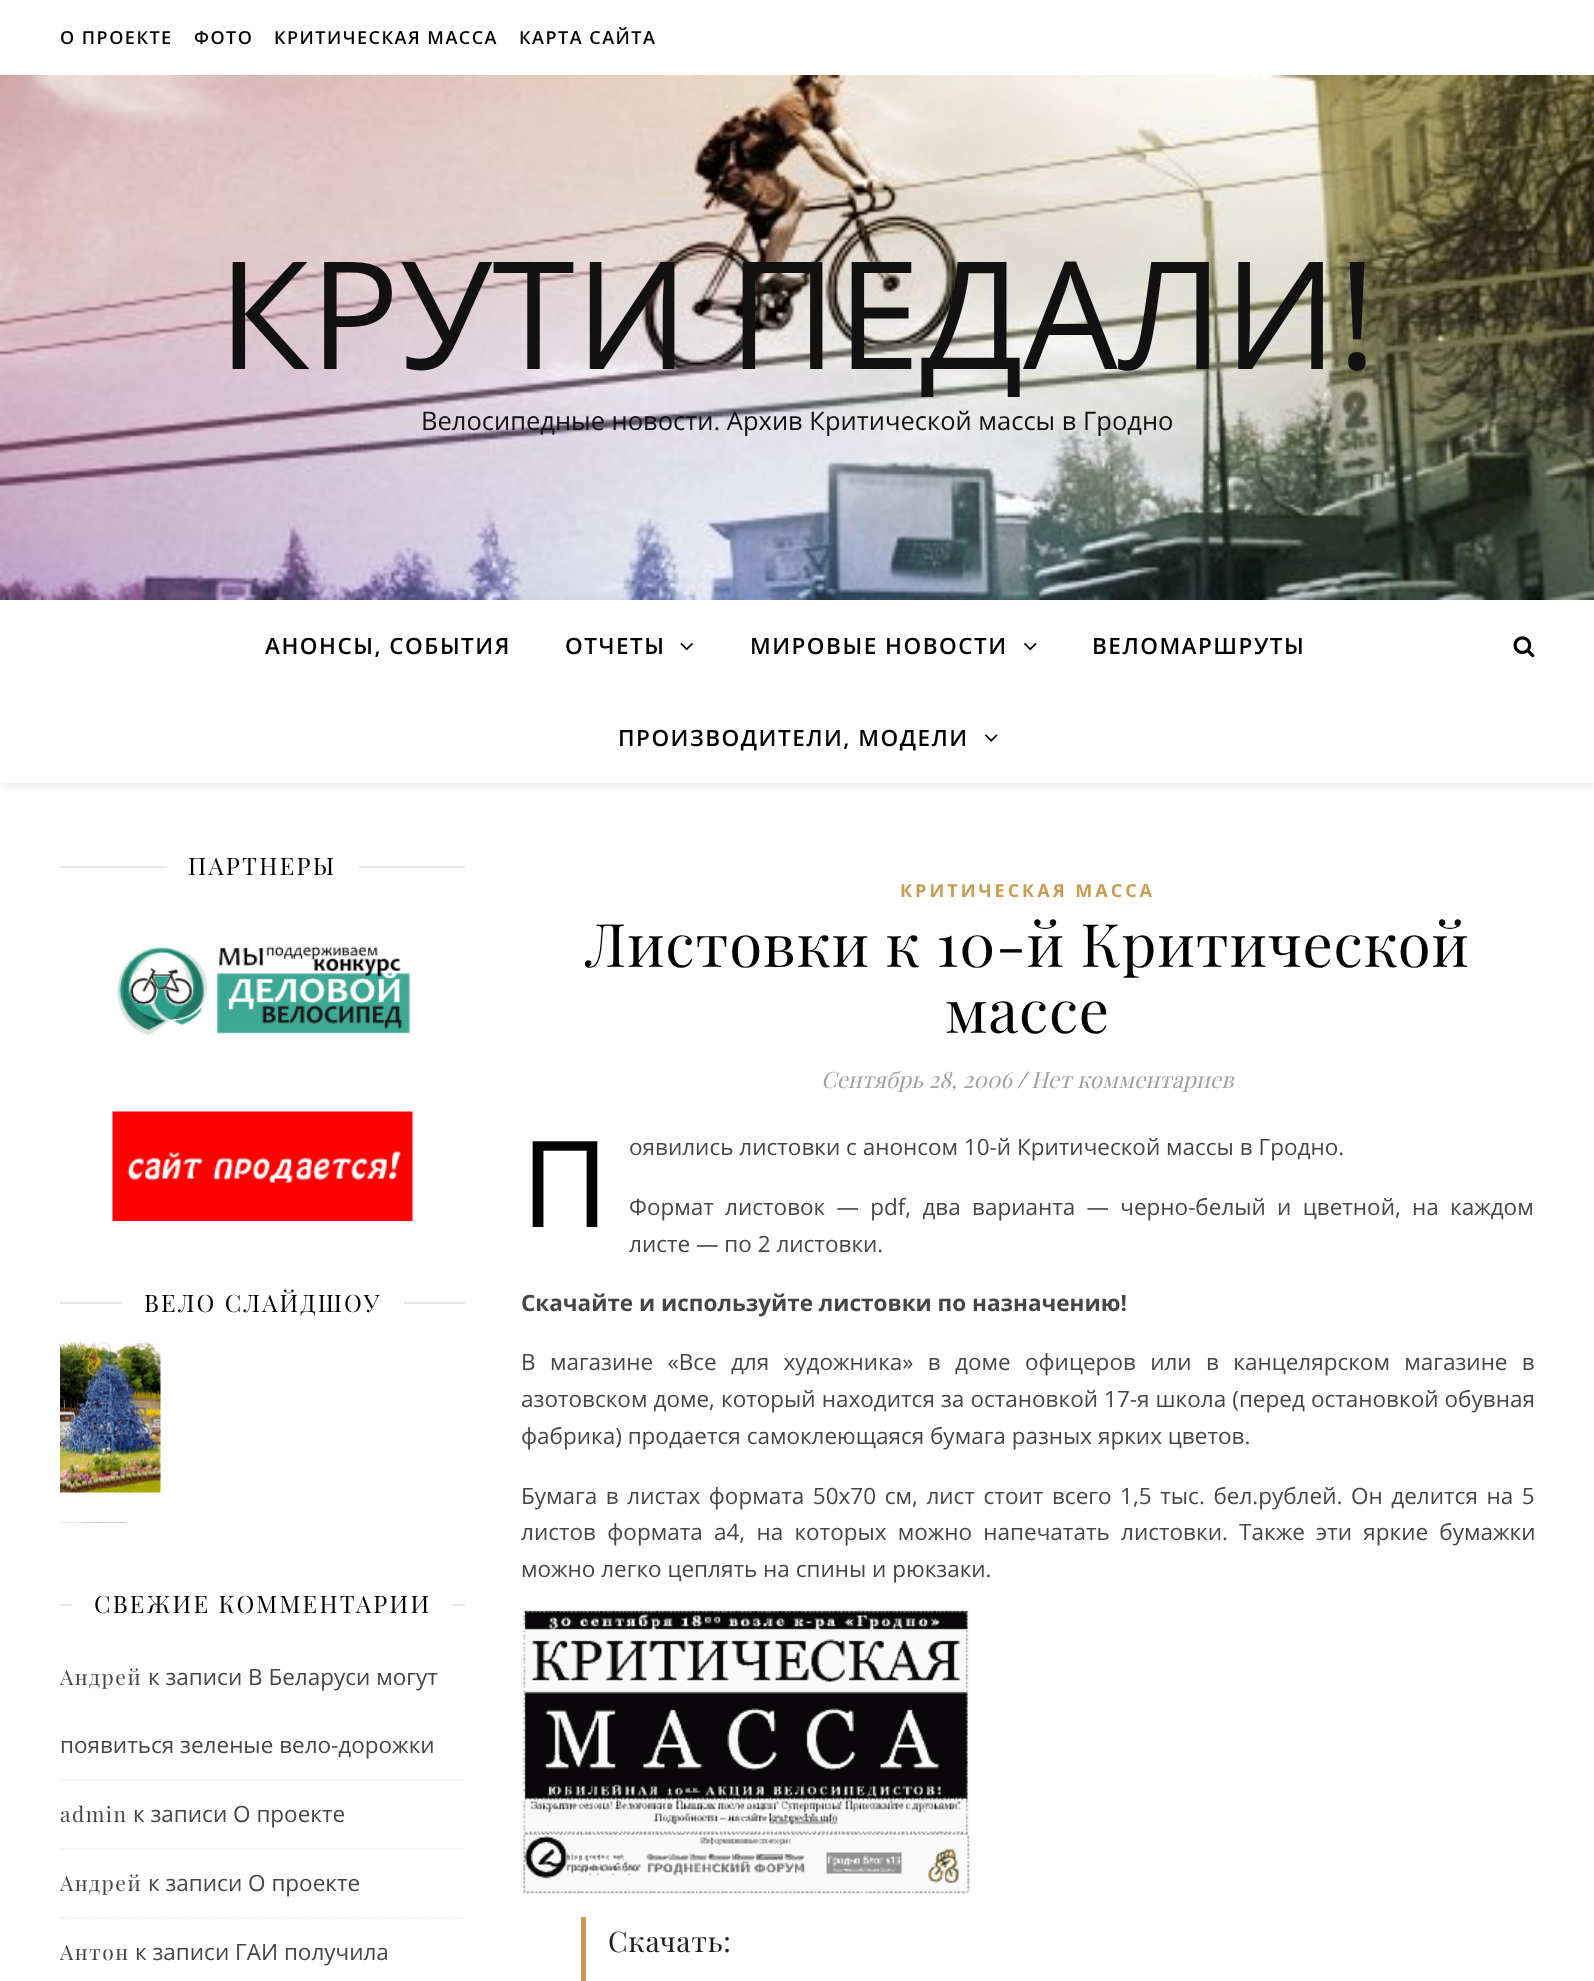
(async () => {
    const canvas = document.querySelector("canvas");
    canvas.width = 1594;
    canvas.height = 1981;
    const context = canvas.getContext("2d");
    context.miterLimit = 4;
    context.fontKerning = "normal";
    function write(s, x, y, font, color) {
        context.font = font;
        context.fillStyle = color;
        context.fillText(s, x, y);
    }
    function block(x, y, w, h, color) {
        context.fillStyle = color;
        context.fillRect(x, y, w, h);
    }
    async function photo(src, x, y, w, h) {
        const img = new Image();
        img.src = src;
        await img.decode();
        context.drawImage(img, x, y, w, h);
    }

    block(0, 0, 1594, 1981, "rgb(255, 255, 255)");
    context.letterSpacing = "1.5px";
    write("О ПРОЕКТЕ", 60, 44, "600 18px Open Sans", "rgb(3, 3, 3)");
    write("ФОТО", 194, 44, "600 18px Open Sans", "rgb(3, 3, 3)");
    write("КРИТИЧЕСКАЯ МАССА", 274, 44, "600 18px Open Sans", "rgb(3, 3, 3)");
    write("КАРТА САЙТА", 519, 44, "600 18px Open Sans", "rgb(3, 3, 3)");
    await photo("media/1.png", 0, 75, 1594, 525);
    context.letterSpacing = "0px";
    write("КРУТИ ПЕДАЛИ!", 218, 369, "150px Open Sans", "rgb(17, 17, 17)");
    write("Велосипедные новости. Архив Критической массы в Гродно", 421, 430, "25.5px Open Sans", "rgb(17, 17, 17)");
    context.save();
    context.beginPath();
    context.moveTo(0, 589);
    context.lineTo(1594, 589);
    context.lineTo(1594, 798);
    context.lineTo(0, 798);
    context.closePath();
    context.moveTo(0, 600);
    context.lineTo(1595, 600);
    context.lineTo(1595, 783);
    context.lineTo(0, 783);
    context.closePath();
    context.clip("evenodd");
    context.fillStyle = "rgba(0, 0, 0, 0.1)";
    context.filter = "blur(4px)";
    context.beginPath();
    context.rect(0, 602, 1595, 183);
    context.fill();
    context.filter = "none";
    context.restore();
    context.letterSpacing = "1.5px";
    write("АНОНСЫ, СОБЫТИЯ", 265, 654, "600 22.5px Open Sans", "rgb(3, 3, 3)");
    write("ОТЧЕТЫ", 565, 654, "600 22.5px Open Sans", "rgb(3, 3, 3)");
    await photo("media/2.png", 680, 643, 13, 8);
    write("МИРОВЫЕ НОВОСТИ", 750, 654, "600 22.5px Open Sans", "rgb(3, 3, 3)");
    await photo("media/3.png", 1024, 643, 13, 8);
    write("ВЕЛОМАРШРУТЫ", 1092, 654, "600 22.5px Open Sans", "rgb(3, 3, 3)");
    write("ПРОИЗВОДИТЕЛИ, МОДЕЛИ", 618, 746, "600 22.5px Open Sans", "rgb(3, 3, 3)");
    await photo("media/4.png", 985, 734, 13, 8);
    await photo("media/5.png", 1513, 636, 22, 22);
    block(60, 866, 107, 2, "rgb(232, 232, 232)");
    context.letterSpacing = "2.25px";
    write("ПАРТНЕРЫ", 188, 875, "24px Playfair Display", "rgb(3, 3, 3)");
    block(359, 866, 106, 2, "rgb(232, 232, 232)");
    await photo("media/6.png", 117, 946, 294, 90);
    await photo("media/7.png", 112, 1111, 301, 110);
    block(60, 1302, 62, 2, "rgb(232, 232, 232)");
    write("ВЕЛО СЛАЙДШОУ", 144, 1312, "24px Playfair Display", "rgb(3, 3, 3)");
    block(404, 1302, 61, 2, "rgb(232, 232, 232)");
    await photo("media/8.png", 60, 1342, 101, 151);
    await photo("media/9.png", 60, 1522, 66, 1);
    block(60, 1604, 12, 2, "rgb(232, 232, 232)");
    write("СВЕЖИЕ КОММЕНТАРИИ", 94, 1613, "24px Playfair Display", "rgb(3, 3, 3)");
    block(453, 1604, 12, 2, "rgb(232, 232, 232)");
    context.beginPath();
    context.moveTo(60, 1780);
    context.lineTo(465, 1780);
    context.strokeStyle = "rgb(232, 232, 232)";
    context.lineWidth = 1.5;
    context.setLineDash([1.5, 1.5]);
    context.stroke();
    context.letterSpacing = "1.5px";
    write("Андрей", 60, 1685, "21px Playfair Display", "rgb(70, 70, 70)");
    context.letterSpacing = "0px";
    write("к записи В Беларуси могут", 148, 1685, "22.5px Open Sans", "rgb(70, 70, 70)");
    write("появиться зеленые вело-дорожки", 60, 1753, "22.5px Open Sans", "rgb(70, 70, 70)");
    context.beginPath();
    context.moveTo(60, 1849);
    context.lineTo(465, 1849);
    context.stroke();
    context.letterSpacing = "1.5px";
    write("admin", 60, 1822, "21px Playfair Display", "rgb(70, 70, 70)");
    context.letterSpacing = "0px";
    write("к записи О проекте", 133, 1822, "22.5px Open Sans", "rgb(70, 70, 70)");
    context.beginPath();
    context.moveTo(60, 1918);
    context.lineTo(465, 1918);
    context.stroke();
    context.letterSpacing = "1.5px";
    write("Андрей", 60, 1891, "21px Playfair Display", "rgb(70, 70, 70)");
    context.letterSpacing = "0px";
    write("к записи О проекте", 148, 1891, "22.5px Open Sans", "rgb(70, 70, 70)");
    context.letterSpacing = "1.5px";
    write("Антон", 60, 1960, "21px Playfair Display", "rgb(70, 70, 70)");
    context.letterSpacing = "0px";
    write("к записи ГАИ получила", 135, 1960, "22.5px Open Sans", "rgb(70, 70, 70)");
    context.letterSpacing = "3px";
    write("КРИТИЧЕСКАЯ МАССА", 900, 897, "bold 18px Open Sans", "rgb(202, 155, 82)");
    context.letterSpacing = "0.75px";
    write("Листовки к 10-й Критической", 585, 967, "60px Playfair Display", "rgb(3, 3, 3)");
    write("массе", 945, 1033, "60px Playfair Display", "rgb(3, 3, 3)");
    context.letterSpacing = "0px";
    write("Сентябрь 28, 2006", 821, 1088, "italic 22.5px Playfair Display", "rgb(161, 161, 161)");
    write("/", 1017, 1088, "italic 22.5px Playfair Display", "rgb(70, 70, 70)");
    write("Нет комментариев", 1031, 1088, "italic 22.5px Playfair Display", "rgb(161, 161, 161)");
    write("П", 521, 1227, "120px Noto Sans", "rgb(3, 3, 3)");
    write("оявились листовки с анонсом 10-й Критической массы в Гродно.", 629, 1155, "22.5px Open Sans", "rgb(70, 70, 70)");
    context.wordSpacing = "5.4px";
    write("Формат листовок — pdf, два варианта — черно-белый и цветной, на каждом", 629, 1215, "22.5px Open Sans", "rgb(70, 70, 70)");
    context.wordSpacing = "0px";
    write("листе — по 2 листовки.", 629, 1252, "22.5px Open Sans", "rgb(70, 70, 70)");
    write("Скачайте и используйте листовки по назначению!", 521, 1311, "bold 22.5px Open Sans", "rgb(70, 70, 70)");
    context.wordSpacing = "8.5px";
    write("В магазине «Все для художника» в доме офицеров или в канцелярском магазине в", 521, 1370, "22.5px Open Sans", "rgb(70, 70, 70)");
    context.wordSpacing = "0.25px";
    write("азотовском доме, который находится за остановкой 17-я школа (перед остановкой обувная", 521, 1407, "22.5px Open Sans", "rgb(70, 70, 70)");
    context.wordSpacing = "0px";
    write("фабрика) продается самоклеющаяся бумага разных ярких цветов.", 521, 1444, "22.5px Open Sans", "rgb(70, 70, 70)");
    context.wordSpacing = "2.75px";
    write("Бумага в листах формата 50х70 см, лист стоит всего 1,5 тыс. бел.рублей. Он делится на 5", 521, 1504, "22.5px Open Sans", "rgb(70, 70, 70)");
    context.wordSpacing = "5.4px";
    write("листов формата а4, на которых можно напечатать листовки. Также эти яркие бумажки", 521, 1540, "22.5px Open Sans", "rgb(70, 70, 70)");
    context.wordSpacing = "0px";
    write("можно легко цеплять на спины и рюкзаки.", 521, 1577, "22.5px Open Sans", "rgb(70, 70, 70)");
    await photo("media/10.png", 521, 1610, 449, 284);
    block(581, 1917, 5, 64, "rgb(202, 155, 82)");
    context.letterSpacing = "0.75px";
    write("Скачать:", 608, 1952, "28.5px Playfair Display", "rgb(28, 28, 28)");
})();
